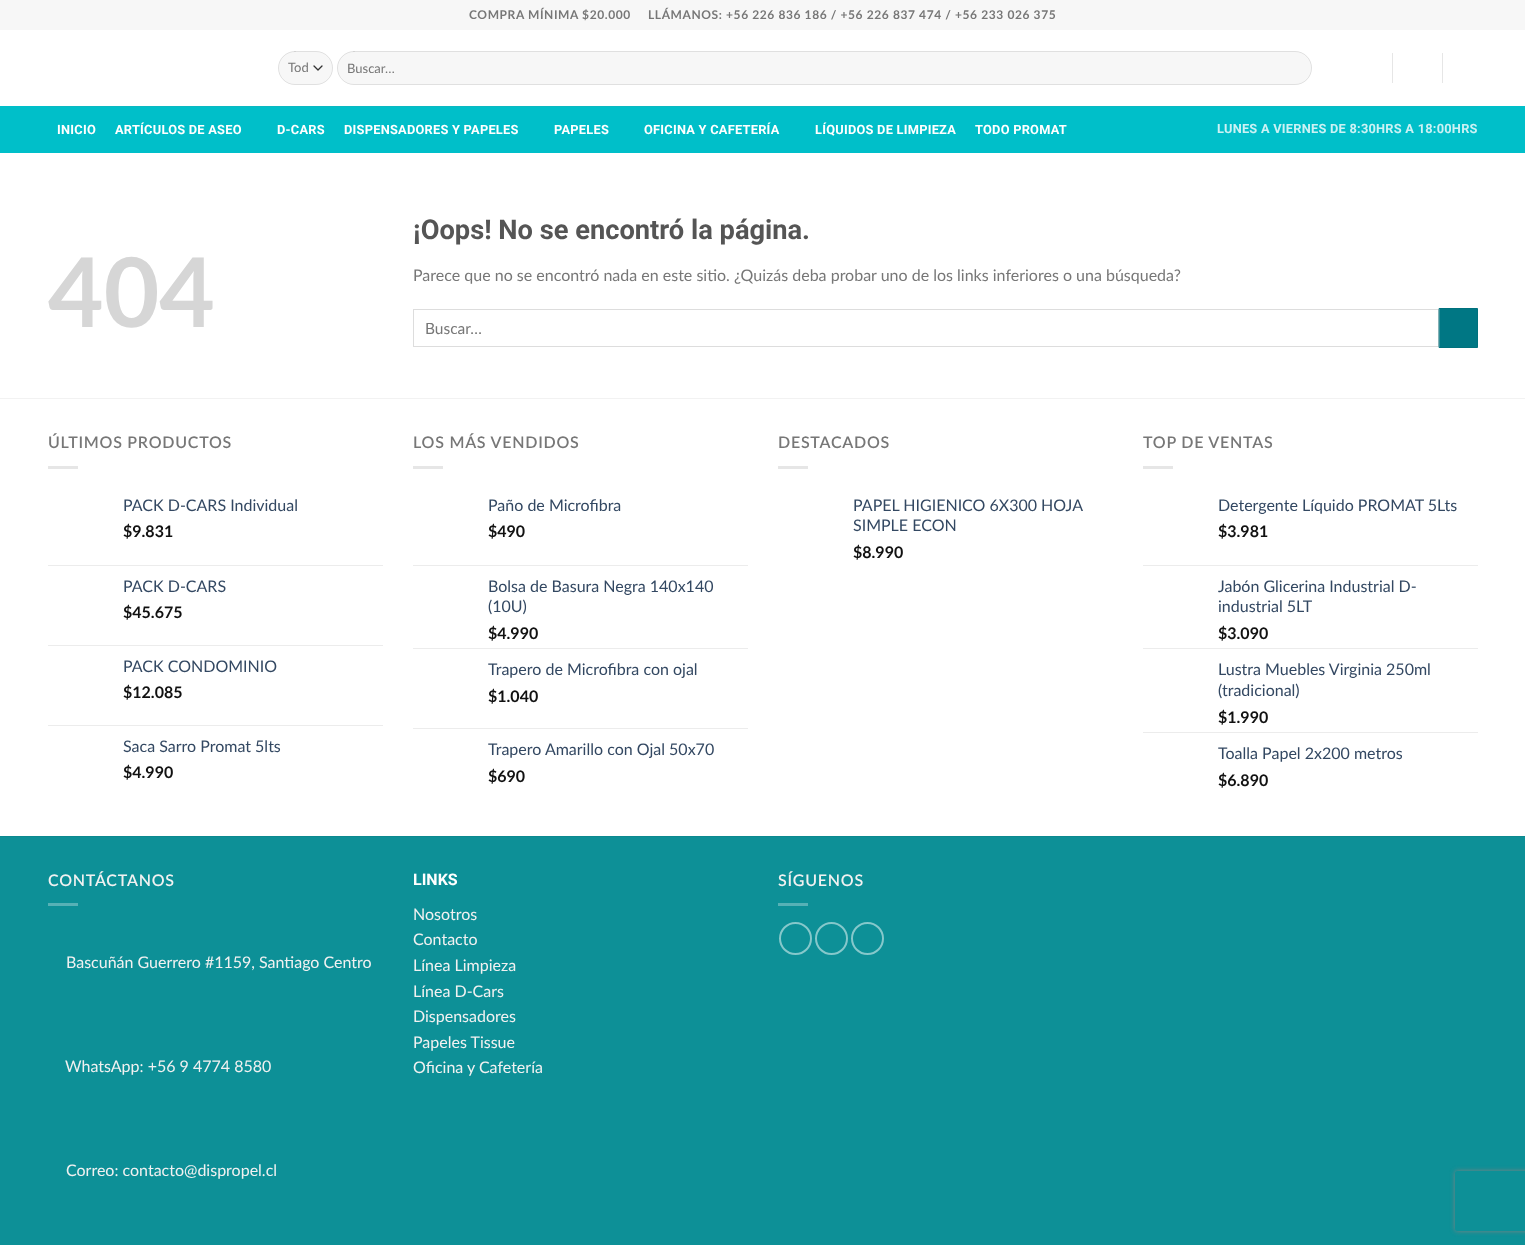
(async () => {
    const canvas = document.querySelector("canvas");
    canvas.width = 1525;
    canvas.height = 1245;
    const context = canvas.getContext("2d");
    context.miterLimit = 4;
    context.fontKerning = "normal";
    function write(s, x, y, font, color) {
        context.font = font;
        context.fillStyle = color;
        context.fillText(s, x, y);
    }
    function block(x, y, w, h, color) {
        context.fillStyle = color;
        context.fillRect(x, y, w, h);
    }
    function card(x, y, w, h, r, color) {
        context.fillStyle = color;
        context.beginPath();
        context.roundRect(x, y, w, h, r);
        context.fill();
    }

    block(0, 0, 1525, 1245, "rgb(255, 255, 255)");
    block(0, 0, 1525, 30, "rgb(247, 247, 247)");
    context.letterSpacing = "0.6px";
    write("COMPRA MÍNIMA $20.000", 469, 19, "bold 12px Lato", "rgb(119, 119, 119)");
    write("LLÁMANOS: +56 226 836 186 / +56 226 837 474 / +56 233 026 375", 648, 19, "bold 12px Lato", "rgb(119, 119, 119)");
    card(278, 51, 55, 34, 17, "rgb(247, 247, 247)");
    context.beginPath();
    context.moveTo(314, 66);
    context.lineTo(318, 70);
    context.lineTo(322, 66);
    context.strokeStyle = "rgb(51, 51, 51)";
    context.lineWidth = 1.3;
    context.lineCap = "round";
    context.lineJoin = "round";
    context.stroke();
    context.beginPath();
    context.roundRect(278.5, 51.5, 54, 33, 16.5);
    context.strokeStyle = "rgba(0, 0, 0, 0.09)";
    context.lineWidth = 1;
    context.lineJoin = "miter";
    context.stroke();
    context.letterSpacing = "0px";
    write("Tod", 288, 72, "13px Lato", "rgb(119, 119, 119)");
    card(337, 51, 975, 34, 17, "rgb(247, 247, 247)");
    context.beginPath();
    context.roundRect(337.5, 51.5, 974, 33, 16.5);
    context.stroke();
    write("Buscar…", 347, 73, "13px Lato", "rgb(119, 119, 119)");
    block(1392, 53, 1, 30, "rgb(230, 230, 230)");
    block(1442, 53, 1, 30, "rgb(230, 230, 230)");
    block(0, 106, 1525, 47, "rgb(0, 191, 201)");
    block(48, 106, 1430, 1, "rgb(12, 184, 193)");
    context.letterSpacing = "0.25px";
    write("INICIO", 57, 134, "bold 12.8px Roboto", "rgb(255, 255, 255)");
    write("ARTÍCULOS DE ASEO", 115, 134, "bold 12.8px Roboto", "rgb(255, 255, 255)");
    write("D-CARS", 277, 134, "bold 12.8px Roboto", "rgb(255, 255, 255)");
    write("DISPENSADORES Y PAPELES", 344, 134, "bold 12.8px Roboto", "rgb(255, 255, 255)");
    write("PAPELES", 554, 134, "bold 12.8px Roboto", "rgb(255, 255, 255)");
    write("OFICINA Y CAFETERÍA", 644, 134, "bold 12.8px Roboto", "rgb(255, 255, 255)");
    write("LÍQUIDOS DE LIMPIEZA", 815, 134, "bold 12.8px Roboto", "rgb(255, 255, 255)");
    write("TODO PROMAT", 975, 134, "bold 12.8px Roboto", "rgb(255, 255, 255)");
    write("LUNES A VIERNES DE 8:30HRS A 18:00HRS", 1217, 133, "bold 12.8px Roboto", "rgb(204, 242, 244)");
    context.letterSpacing = "0px";
    write("404", 48, 327, "bold 96px Lato", "rgb(214, 214, 214)");
    write("¡Oops! No se encontró la página.", 413, 239, "bold 27.25px Roboto", "rgb(85, 85, 85)");
    write("Parece que no se encontró nada en este sitio. ¿Quizás deba probar uno de los links inferiores o una búsqueda?", 413, 281, "16px Lato", "rgb(119, 119, 119)");
    context.strokeStyle = "rgb(221, 221, 221)";
    context.strokeRect(413.5, 309.5, 1025, 37);
    write("Buscar…", 425, 334, "15.5px Lato", "rgb(119, 119, 119)");
    context.fillStyle = "rgb(0, 119, 132)";
    context.beginPath();
    context.rect(1439.5, 308.5, 38, 39);
    context.fill();
    context.strokeStyle = "rgb(0, 113, 125)";
    context.stroke();
    block(0, 398, 1525, 1, "rgb(242, 242, 242)");
    context.letterSpacing = "0.75px";
    write("ÚLTIMOS PRODUCTOS", 48, 448, "600 16px Lato", "rgb(119, 119, 119)");
    block(48, 466, 30, 3, "rgb(230, 230, 230)");
    context.letterSpacing = "0px";
    write("PACK D-CARS Individual", 123, 511, "16px Lato", "rgb(51, 72, 98)");
    write("$9.831", 123, 537, "bold 16px Lato", "rgb(17, 17, 17)");
    block(48, 565, 335, 1, "rgb(236, 236, 236)");
    write("PACK D-CARS", 123, 592, "16px Lato", "rgb(51, 72, 98)");
    write("$45.675", 123, 618, "bold 16px Lato", "rgb(17, 17, 17)");
    block(48, 645, 335, 1, "rgb(236, 236, 236)");
    write("PACK CONDOMINIO", 123, 672, "16px Lato", "rgb(51, 72, 98)");
    write("$12.085", 123, 698, "bold 16px Lato", "rgb(17, 17, 17)");
    block(48, 725, 335, 1, "rgb(236, 236, 236)");
    write("Saca Sarro Promat 5lts", 123, 752, "16px Lato", "rgb(51, 72, 98)");
    write("$4.990", 123, 778, "bold 16px Lato", "rgb(17, 17, 17)");
    context.letterSpacing = "0.75px";
    write("LOS MÁS VENDIDOS", 413, 448, "600 16px Lato", "rgb(119, 119, 119)");
    block(413, 466, 30, 3, "rgb(230, 230, 230)");
    context.letterSpacing = "0px";
    write("Paño de Microfibra", 488, 511, "16px Lato", "rgb(51, 72, 98)");
    write("$490", 488, 537, "bold 16px Lato", "rgb(17, 17, 17)");
    block(413, 565, 335, 1, "rgb(236, 236, 236)");
    write("Bolsa de Basura Negra 140x140", 488, 592, "16px Lato", "rgb(51, 72, 98)");
    write("(10U)", 488, 612, "16px Lato", "rgb(51, 72, 98)");
    write("$4.990", 488, 639, "bold 16px Lato", "rgb(17, 17, 17)");
    block(413, 648, 335, 1, "rgb(236, 236, 236)");
    write("Trapero de Microfibra con ojal", 488, 675, "16px Lato", "rgb(51, 72, 98)");
    write("$1.040", 488, 702, "bold 16px Lato", "rgb(17, 17, 17)");
    block(413, 728, 335, 1, "rgb(236, 236, 236)");
    write("Trapero Amarillo con Ojal 50x70", 488, 755, "16px Lato", "rgb(51, 72, 98)");
    write("$690", 488, 782, "bold 16px Lato", "rgb(17, 17, 17)");
    context.letterSpacing = "0.75px";
    write("DESTACADOS", 778, 448, "600 16px Lato", "rgb(119, 119, 119)");
    block(778, 466, 30, 3, "rgb(230, 230, 230)");
    context.letterSpacing = "0px";
    write("PAPEL HIGIENICO 6X300 HOJA", 853, 511, "16px Lato", "rgb(51, 72, 98)");
    write("SIMPLE ECON", 853, 531, "16px Lato", "rgb(51, 72, 98)");
    write("$8.990", 853, 558, "bold 16px Lato", "rgb(17, 17, 17)");
    context.letterSpacing = "0.75px";
    write("TOP DE VENTAS", 1143, 448, "600 16px Lato", "rgb(119, 119, 119)");
    block(1143, 466, 30, 3, "rgb(230, 230, 230)");
    context.letterSpacing = "0px";
    write("Detergente Líquido PROMAT 5Lts", 1218, 511, "16px Lato", "rgb(51, 72, 98)");
    write("$3.981", 1218, 537, "bold 16px Lato", "rgb(17, 17, 17)");
    block(1143, 565, 335, 1, "rgb(236, 236, 236)");
    write("Jabón Glicerina Industrial D-", 1218, 592, "16px Lato", "rgb(51, 72, 98)");
    write("industrial 5LT", 1218, 612, "16px Lato", "rgb(51, 72, 98)");
    write("$3.090", 1218, 639, "bold 16px Lato", "rgb(17, 17, 17)");
    block(1143, 648, 335, 1, "rgb(236, 236, 236)");
    write("Lustra Muebles Virginia 250ml", 1218, 675, "16px Lato", "rgb(51, 72, 98)");
    write("(tradicional)", 1218, 696, "16px Lato", "rgb(51, 72, 98)");
    write("$1.990", 1218, 723, "bold 16px Lato", "rgb(17, 17, 17)");
    block(1143, 732, 335, 1, "rgb(236, 236, 236)");
    write("Toalla Papel 2x200 metros", 1218, 759, "16px Lato", "rgb(51, 72, 98)");
    write("$6.890", 1218, 786, "bold 16px Lato", "rgb(17, 17, 17)");
    block(0, 837, 1525, 408, "rgb(13, 144, 151)");
    block(0, 836, 1525, 1, "rgb(12, 137, 143)");
    context.letterSpacing = "0.75px";
    write("CONTÁCTANOS", 48, 886, "600 16px Lato", "rgb(241, 241, 241)");
    block(48, 903, 30, 3, "rgb(86, 177, 182)");
    context.letterSpacing = "0px";
    write("Bascuñán Guerrero #1159, Santiago Centro", 66, 968, "16px Lato", "rgb(241, 241, 241)");
    write("WhatsApp: +56 9 4774 8580", 65, 1072, "16px Lato", "rgb(241, 241, 241)");
    write("Correo: contacto@dispropel.cl", 66, 1176, "16px Lato", "rgb(241, 241, 241)");
    write("LINKS", 413, 885, "bold 16px Roboto", "rgb(255, 255, 255)");
    write("Nosotros", 413, 920, "16px Lato", "rgb(241, 241, 241)");
    write("Contacto", 413, 945, "16px Lato", "rgb(241, 241, 241)");
    write("Línea Limpieza", 413, 971, "16px Lato", "rgb(241, 241, 241)");
    write("Línea D-Cars", 413, 997, "16px Lato", "rgb(241, 241, 241)");
    write("Dispensadores", 413, 1022, "16px Lato", "rgb(241, 241, 241)");
    write("Papeles Tissue", 413, 1048, "16px Lato", "rgb(241, 241, 241)");
    write("Oficina y Cafetería", 413, 1073, "16px Lato", "rgb(241, 241, 241)");
    context.letterSpacing = "0.75px";
    write("SÍGUENOS", 778, 886, "600 16px Lato", "rgb(241, 241, 241)");
    block(778, 903, 30, 3, "rgb(86, 177, 182)");
    context.beginPath();
    context.arc(795.5, 938.5, 15.5, 0, Math.PI * 2);
    context.strokeStyle = "rgb(134, 200, 203)";
    context.lineWidth = 2;
    context.stroke();
    context.beginPath();
    context.arc(831.5, 938.5, 15.5, 0, Math.PI * 2);
    context.stroke();
    context.beginPath();
    context.arc(867.5, 938.5, 15.5, 0, Math.PI * 2);
    context.stroke();
    context.save();
    context.beginPath();
    context.moveTo(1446, 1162);
    context.lineTo(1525, 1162);
    context.lineTo(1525, 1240);
    context.lineTo(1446, 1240);
    context.closePath();
    context.moveTo(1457, 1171);
    context.lineTo(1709, 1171);
    context.bezierCurveTo(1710, 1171, 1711, 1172, 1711, 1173);
    context.lineTo(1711, 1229);
    context.bezierCurveTo(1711, 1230, 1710, 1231, 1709, 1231);
    context.lineTo(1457, 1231);
    context.bezierCurveTo(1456, 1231, 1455, 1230, 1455, 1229);
    context.lineTo(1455, 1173);
    context.bezierCurveTo(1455, 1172, 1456, 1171, 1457, 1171);
    context.closePath();
    context.clip("evenodd");
    context.fillStyle = "rgb(128, 128, 128)";
    context.filter = "blur(2.5px)";
    context.beginPath();
    context.roundRect(1455, 1171, 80, 60, 2);
    context.fill();
    context.filter = "none";
    context.restore();
})();
